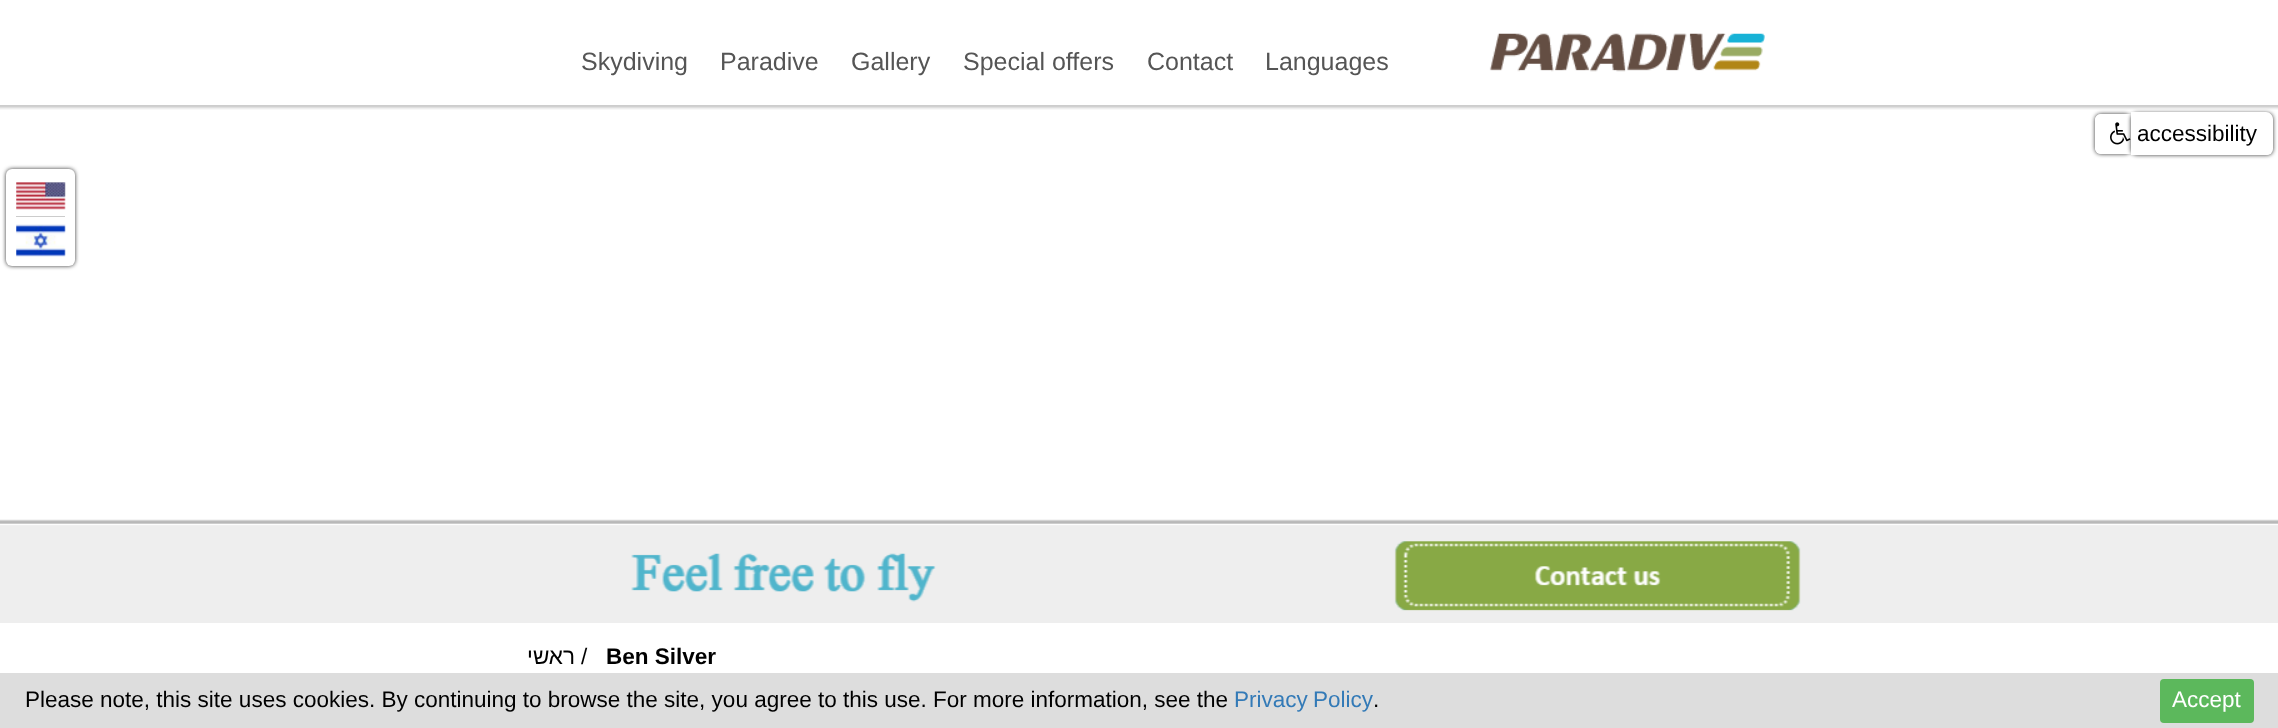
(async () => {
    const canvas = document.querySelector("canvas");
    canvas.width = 2278;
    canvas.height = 728;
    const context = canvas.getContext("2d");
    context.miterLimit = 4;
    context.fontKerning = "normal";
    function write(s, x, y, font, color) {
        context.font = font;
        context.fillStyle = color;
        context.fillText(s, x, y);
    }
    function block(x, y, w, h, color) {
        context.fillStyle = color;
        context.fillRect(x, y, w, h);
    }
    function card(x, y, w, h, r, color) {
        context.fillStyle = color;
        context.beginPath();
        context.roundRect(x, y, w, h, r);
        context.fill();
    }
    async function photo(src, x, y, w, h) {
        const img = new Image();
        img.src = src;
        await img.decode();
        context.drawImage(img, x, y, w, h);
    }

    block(0, 0, 2278, 728, "rgb(255, 255, 255)");
    await photo("media/1.png", 0, 105, 2278, 5);
    write("Skydiving", 581, 70, "25px Liberation Sans", "rgb(85, 85, 85)");
    write("Paradive", 720, 70, "25px Liberation Sans", "rgb(85, 85, 85)");
    write("Gallery", 851, 70, "25px Liberation Sans", "rgb(85, 85, 85)");
    write("Special offers", 963, 70, "25px Liberation Sans", "rgb(85, 85, 85)");
    write("Contact", 1147, 70, "25px Liberation Sans", "rgb(85, 85, 85)");
    write("Languages", 1265, 70, "25px Liberation Sans", "rgb(85, 85, 85)");
    await photo("media/2.png", 1489, 33, 276, 39);
    await photo("media/3.png", 0, 519, 2278, 104);
    context.direction = "rtl";
    write("ראשי", 575, 664, "22.5px Liberation Sans", "rgb(0, 0, 0)");
    context.direction = "ltr";
    write("/", 581, 664, "22.5px Liberation Sans", "rgb(0, 0, 0)");
    write("Ben Silver", 606, 664, "bold 22.5px Liberation Sans", "rgb(0, 0, 0)");
    context.fillStyle = "rgb(51, 51, 51)";
    context.filter = "blur(2px)";
    context.beginPath();
    context.roundRect(2095, 114, 36, 40, 6);
    context.fill();
    context.filter = "none";
    context.fillStyle = "rgb(255, 255, 255)";
    context.beginPath();
    context.roundRect(2095, 114, 36, 40, [6, 0, 0, 6]);
    context.fill();
    context.beginPath();
    context.moveTo(2101, 114);
    context.lineTo(2131, 114);
    context.lineTo(2131, 154);
    context.lineTo(2101, 154);
    context.bezierCurveTo(2098, 154, 2095, 151, 2095, 148);
    context.lineTo(2095, 120);
    context.bezierCurveTo(2095, 117, 2098, 114, 2101, 114);
    context.closePath();
    context.moveTo(2101, 116);
    context.lineTo(2131, 116);
    context.lineTo(2131, 151);
    context.lineTo(2101, 151);
    context.bezierCurveTo(2099, 151, 2098, 150, 2098, 148);
    context.lineTo(2098, 120);
    context.bezierCurveTo(2098, 118, 2099, 116, 2101, 116);
    context.closePath();
    context.fill("evenodd");
    context.fillStyle = "rgb(51, 51, 51)";
    context.filter = "blur(2px)";
    context.beginPath();
    context.roundRect(2131, 113, 142, 42, 6);
    context.fill();
    context.filter = "none";
    context.fillStyle = "rgb(255, 255, 255)";
    context.beginPath();
    context.roundRect(2131, 113, 142, 42, [0, 6, 6, 0]);
    context.fill();
    context.beginPath();
    context.moveTo(2131, 112);
    context.lineTo(2266, 112);
    context.bezierCurveTo(2270, 112, 2272, 115, 2272, 119);
    context.lineTo(2272, 149);
    context.bezierCurveTo(2272, 152, 2270, 155, 2266, 155);
    context.lineTo(2131, 155);
    context.closePath();
    context.moveTo(2131, 115);
    context.lineTo(2266, 115);
    context.bezierCurveTo(2268, 115, 2270, 117, 2270, 119);
    context.lineTo(2270, 149);
    context.bezierCurveTo(2270, 151, 2268, 152, 2266, 152);
    context.lineTo(2131, 152);
    context.closePath();
    context.fill("evenodd");
    await photo("media/4.png", 2110, 122, 21, 23);
    write("accessibility", 2137, 141, "22.5px Liberation Sans", "rgb(0, 0, 0)");
    context.fillStyle = "rgb(51, 51, 51)";
    context.filter = "blur(2px)";
    context.beginPath();
    context.roundRect(6, 169, 69, 97, 6);
    context.fill();
    context.filter = "none";
    card(6, 169, 69, 97, 6, "rgb(255, 255, 255)");
    block(16, 216, 49, 1, "rgb(204, 204, 204)");
    await photo("media/5.png", 16, 182, 50, 28);
    await photo("media/6.png", 16, 224, 50, 33);
    block(0, 673, 2278, 55, "rgb(221, 221, 221)");
    write("Please note, this site uses cookies. By continuing to browse the site, you agree to this use. For more information, see the", 25, 707, "22.5px Liberation Sans", "rgb(0, 0, 0)");
    context.wordSpacing = "-1px";
    write("Privacy Policy", 1234, 707, "22.5px Liberation Sans", "rgb(51, 122, 183)");
    context.wordSpacing = "0px";
    write(".", 1373, 707, "22.5px Liberation Sans", "rgb(0, 0, 0)");
    card(2160, 679, 94, 44, 4, "rgb(92, 184, 92)");
    write("Accept", 2172, 707, "22.5px Liberation Sans", "rgb(255, 255, 255)");
})();
